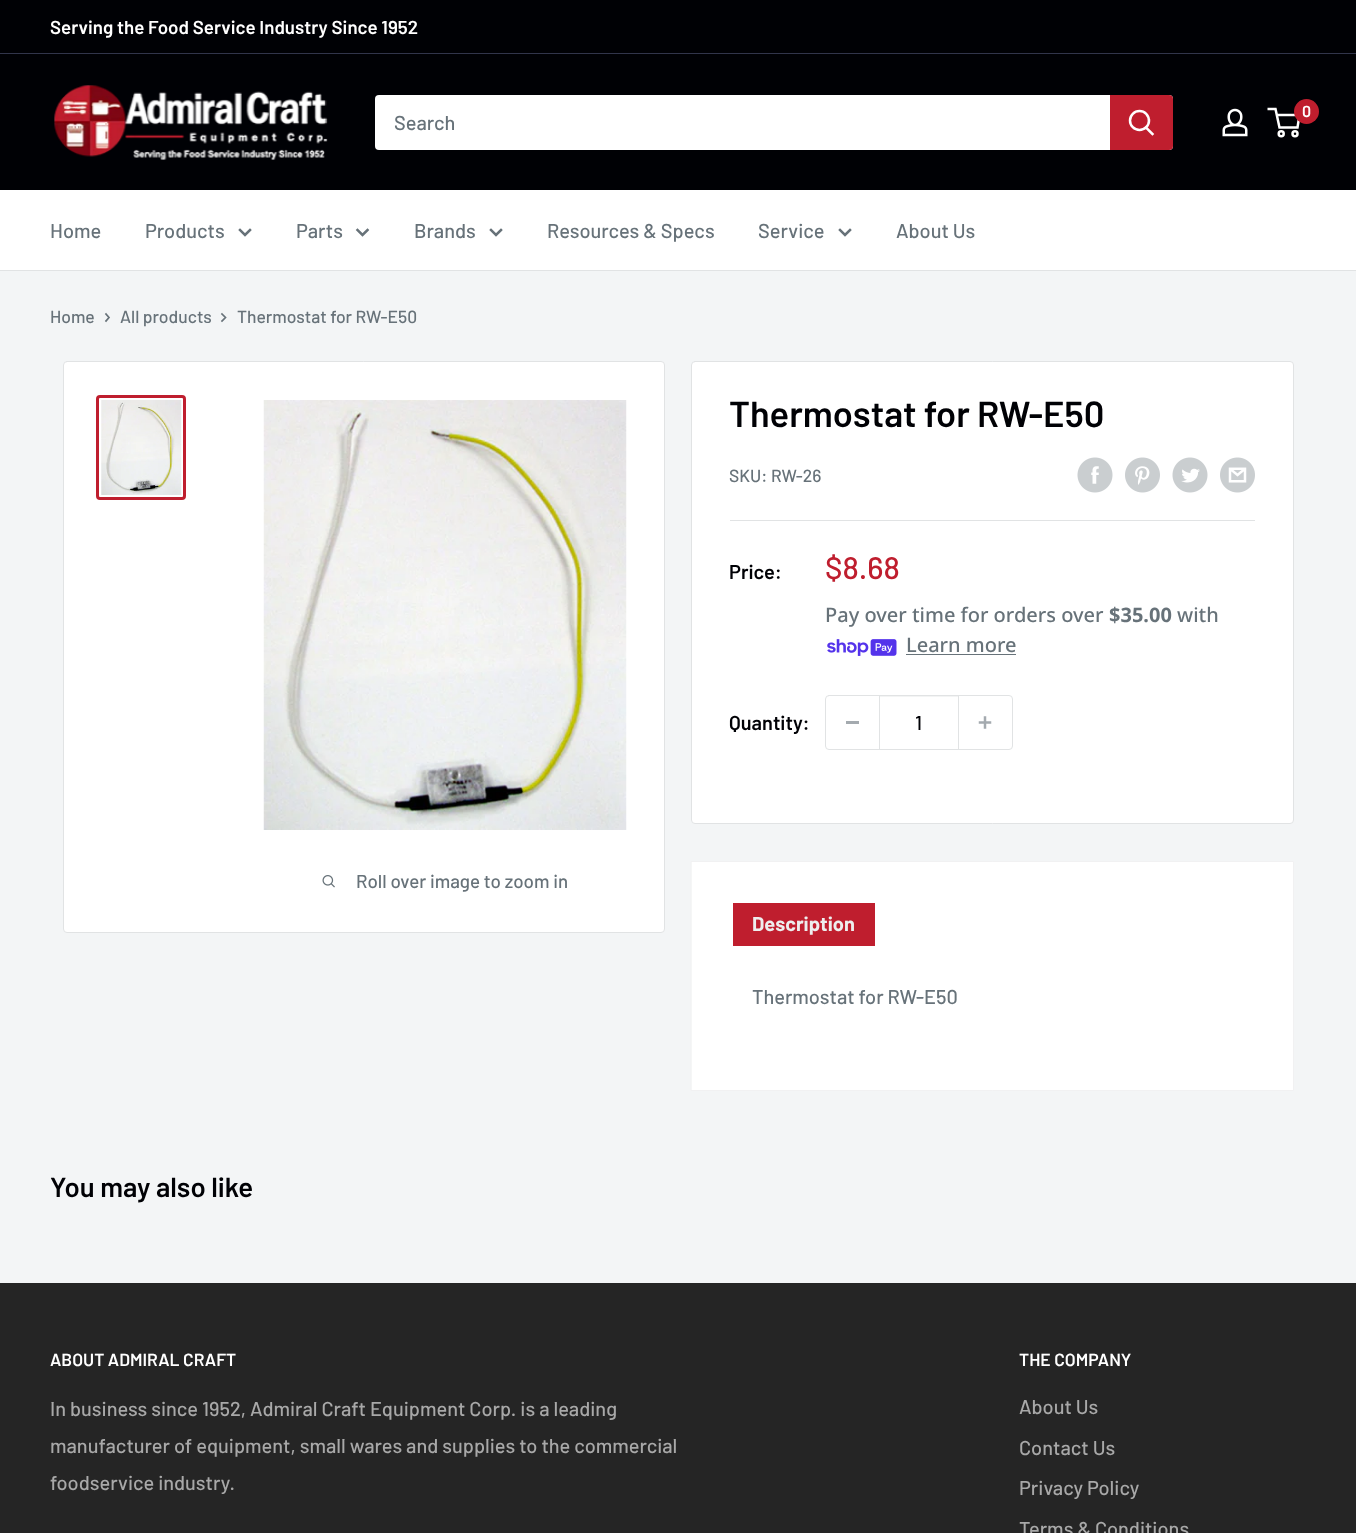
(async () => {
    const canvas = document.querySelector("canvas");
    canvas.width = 1356;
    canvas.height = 1533;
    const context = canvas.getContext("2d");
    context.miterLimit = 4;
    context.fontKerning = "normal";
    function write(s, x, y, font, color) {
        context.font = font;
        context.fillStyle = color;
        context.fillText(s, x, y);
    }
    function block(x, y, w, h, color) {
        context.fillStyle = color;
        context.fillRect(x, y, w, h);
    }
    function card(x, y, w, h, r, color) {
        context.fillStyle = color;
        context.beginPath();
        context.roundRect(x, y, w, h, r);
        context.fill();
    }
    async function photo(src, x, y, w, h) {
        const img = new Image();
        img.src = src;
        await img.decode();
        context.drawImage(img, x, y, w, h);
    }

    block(0, 0, 1356, 1533, "rgb(243, 245, 246)");
    block(0, 0, 1356, 53, "rgb(0, 1, 5)");
    block(0, 53, 1356, 1, "rgb(49, 53, 75)");
    write("Serving the Food Service Industry Since 1952", 50, 34, "600 18.75px Barlow", "rgb(255, 255, 255)");
    block(0, 54, 1356, 136, "rgb(0, 1, 5)");
    await photo("media/1.png", 54, 85, 274, 75);
    await photo("media/2.png", 1222, 108, 26, 29);
    context.beginPath();
    context.arc(1281.2, 133.8, 2.5, 0, Math.PI * 2);
    context.strokeStyle = "rgb(255, 255, 255)";
    context.lineWidth = 2.5;
    context.stroke();
    context.beginPath();
    context.arc(1295, 133.8, 2.5, 0, Math.PI * 2);
    context.stroke();
    context.beginPath();
    context.moveTo(1276.5, 115);
    context.lineTo(1299.5, 115);
    context.lineTo(1297.5, 127.5);
    context.lineTo(1279.5, 127.5);
    context.lineTo(1275.5, 109);
    context.lineTo(1267.5, 109);
    context.stroke();
    context.fillStyle = "rgb(191, 30, 46)";
    context.beginPath();
    context.arc(1306.5, 111.5, 12.5, 0, Math.PI * 2);
    context.fill();
    write("0", 1302, 117, "600 16px Barlow", "rgb(255, 255, 255)");
    card(375, 95, 798, 55, 4, "rgb(255, 255, 255)");
    write("Search", 394, 130, "500 20px Barlow", "rgb(103, 114, 121)");
    context.fillStyle = "rgb(191, 30, 46)";
    context.beginPath();
    context.roundRect(1110, 95, 63, 55, [0, 4, 4, 0]);
    context.fill();
    context.beginPath();
    context.moveTo(1152.5, 134);
    context.lineTo(1146, 127.5);
    context.lineCap = "square";
    context.stroke();
    context.beginPath();
    context.arc(1139.5, 120.5, 9.5, 0, Math.PI * 2);
    context.stroke();
    block(0, 190, 1356, 80, "rgb(255, 255, 255)");
    block(0, 270, 1356, 1, "rgb(225, 227, 228)");
    write("Home", 50, 238, "500 20px Barlow", "rgb(103, 114, 121)");
    write("Products", 145, 238, "500 20px Barlow", "rgb(103, 114, 121)");
    context.beginPath();
    context.moveTo(250, 230);
    context.lineTo(245, 235);
    context.lineTo(240, 230);
    context.strokeStyle = "rgb(103, 114, 121)";
    context.stroke();
    write("Parts", 296, 238, "500 20px Barlow", "rgb(103, 114, 121)");
    context.beginPath();
    context.moveTo(367.5, 230);
    context.lineTo(362.5, 235);
    context.lineTo(357.5, 230);
    context.stroke();
    write("Brands", 414, 238, "500 20px Barlow", "rgb(103, 114, 121)");
    context.beginPath();
    context.moveTo(501, 230);
    context.lineTo(496, 235);
    context.lineTo(491, 230);
    context.stroke();
    write("Resources & Specs", 547, 238, "500 20px Barlow", "rgb(103, 114, 121)");
    write("Service", 758, 238, "500 20px Barlow", "rgb(103, 114, 121)");
    context.beginPath();
    context.moveTo(850, 230);
    context.lineTo(845, 235);
    context.lineTo(840, 230);
    context.stroke();
    write("About Us", 896, 238, "500 20px Barlow", "rgb(103, 114, 121)");
    write("Home", 50, 323, "500 17.5px Barlow", "rgb(103, 114, 121)");
    context.beginPath();
    context.moveTo(106, 314);
    context.lineTo(109, 317.5);
    context.lineTo(106, 321);
    context.lineWidth = 1.7;
    context.stroke();
    write("All products", 120, 323, "500 17.5px Barlow", "rgb(103, 114, 121)");
    context.beginPath();
    context.moveTo(222, 314);
    context.lineTo(225.5, 317.5);
    context.lineTo(222, 321);
    context.stroke();
    write("Thermostat for RW-E50", 237, 323, "500 17.5px Barlow", "rgb(103, 114, 121)");
    context.fillStyle = "rgb(255, 255, 255)";
    context.beginPath();
    context.roundRect(63.5, 361.5, 601, 571, 3.5);
    context.fill();
    context.strokeStyle = "rgb(225, 227, 228)";
    context.lineWidth = 1;
    context.stroke();
    context.beginPath();
    context.roundRect(97.5, 396.5, 87, 102, 2.5);
    context.strokeStyle = "rgb(191, 30, 46)";
    context.lineWidth = 3;
    context.stroke();
    await photo("media/3.png", 101, 400, 81, 95);
    await photo("media/4.png", 263, 400, 364, 430);
    await photo("media/5.png", 322, 875, 13, 13);
    write("Roll over image to zoom in", 356, 888, "500 18.75px Barlow", "rgb(103, 114, 121)");
    context.fillStyle = "rgb(255, 255, 255)";
    context.beginPath();
    context.roundRect(691.5, 361.5, 602, 462, 3.5);
    context.fill();
    context.strokeStyle = "rgb(225, 227, 228)";
    context.lineWidth = 1;
    context.stroke();
    write("Thermostat for RW-E50", 729, 427, "600 36.25px Barlow", "rgb(0, 1, 5)");
    write("SKU: RW-26", 729, 482, "500 17.5px Barlow", "rgb(103, 114, 121)");
    await photo("media/6.png", 1077, 457, 36, 36);
    await photo("media/7.png", 1125, 457, 35, 36);
    await photo("media/8.png", 1172, 457, 36, 36);
    await photo("media/9.png", 1220, 457, 35, 36);
    block(730, 520, 525, 1, "rgb(225, 227, 228)");
    write("Price:", 729, 579, "600 20px Barlow", "rgb(0, 1, 5)");
    write("$8.68", 825, 579, "500 31px Barlow", "rgb(191, 30, 46)");
    write("Pay over time for orders over", 825, 622, "500 20px Noto Sans", "rgb(103, 114, 121)");
    write("$35.00", 1109, 622, "bold 20px Noto Sans", "rgb(103, 114, 121)");
    write("with", 1177, 622, "500 20px Noto Sans", "rgb(103, 114, 121)");
    await photo("media/10.png", 827, 639, 70, 17);
    write("Learn more", 906, 652, "500 20px Noto Sans", "rgb(103, 114, 121)");
    block(906, 654, 110, 1, "rgb(103, 114, 121)");
    write("Quantity:", 729, 730, "600 20px Barlow", "rgb(0, 1, 5)");
    context.beginPath();
    context.roundRect(825.5, 695.5, 187, 54, 3.5);
    context.stroke();
    block(846, 721, 13, 3, "rgb(164, 170, 175)");
    block(880, 696, 78, 1, "rgb(243, 244, 244)");
    block(958, 696, 1, 53, "rgb(225, 227, 228)");
    block(879, 696, 1, 53, "rgb(225, 227, 228)");
    write("1", 915, 730, "500 20px Barlow", "rgb(0, 1, 5)");
    await photo("media/11.png", 978, 716, 14, 13);
    context.fillStyle = "rgb(255, 255, 255)";
    context.beginPath();
    context.rect(691.5, 861.5, 602, 229);
    context.fill();
    context.strokeStyle = "rgb(241, 241, 242)";
    context.stroke();
    block(733, 903, 142, 43, "rgb(191, 30, 46)");
    write("Description", 752, 931, "bold 20px Barlow", "rgb(238, 238, 238)");
    write("Thermostat for RW-E50", 752, 1004, "500 20px Barlow", "rgb(103, 114, 121)");
    write("You may also like", 50, 1197, "600 27.5px Barlow", "rgb(0, 1, 5)");
    block(0, 1283, 1356, 250, "rgb(37, 37, 37)");
    write("ABOUT ADMIRAL CRAFT", 50, 1366, "600 17.5px Barlow", "rgb(255, 255, 255)");
    write("In business since 1952, Admiral Craft Equipment Corp. is a leading", 50, 1416, "500 20px Barlow", "rgb(168, 168, 168)");
    write("manufacturer of equipment, small wares and supplies to the commercial", 50, 1453, "500 20px Barlow", "rgb(168, 168, 168)");
    write("foodservice industry.", 50, 1490, "500 20px Barlow", "rgb(168, 168, 168)");
    write("THE COMPANY", 1019, 1366, "600 17.5px Barlow", "rgb(255, 255, 255)");
    write("About Us", 1019, 1414, "500 20px Barlow", "rgb(168, 168, 168)");
    write("Contact Us", 1019, 1455, "500 20px Barlow", "rgb(168, 168, 168)");
    write("Privacy Policy", 1019, 1495, "500 20px Barlow", "rgb(168, 168, 168)");
    write("Terms & Conditions", 1019, 1536, "500 20px Barlow", "rgb(168, 168, 168)");
})();
